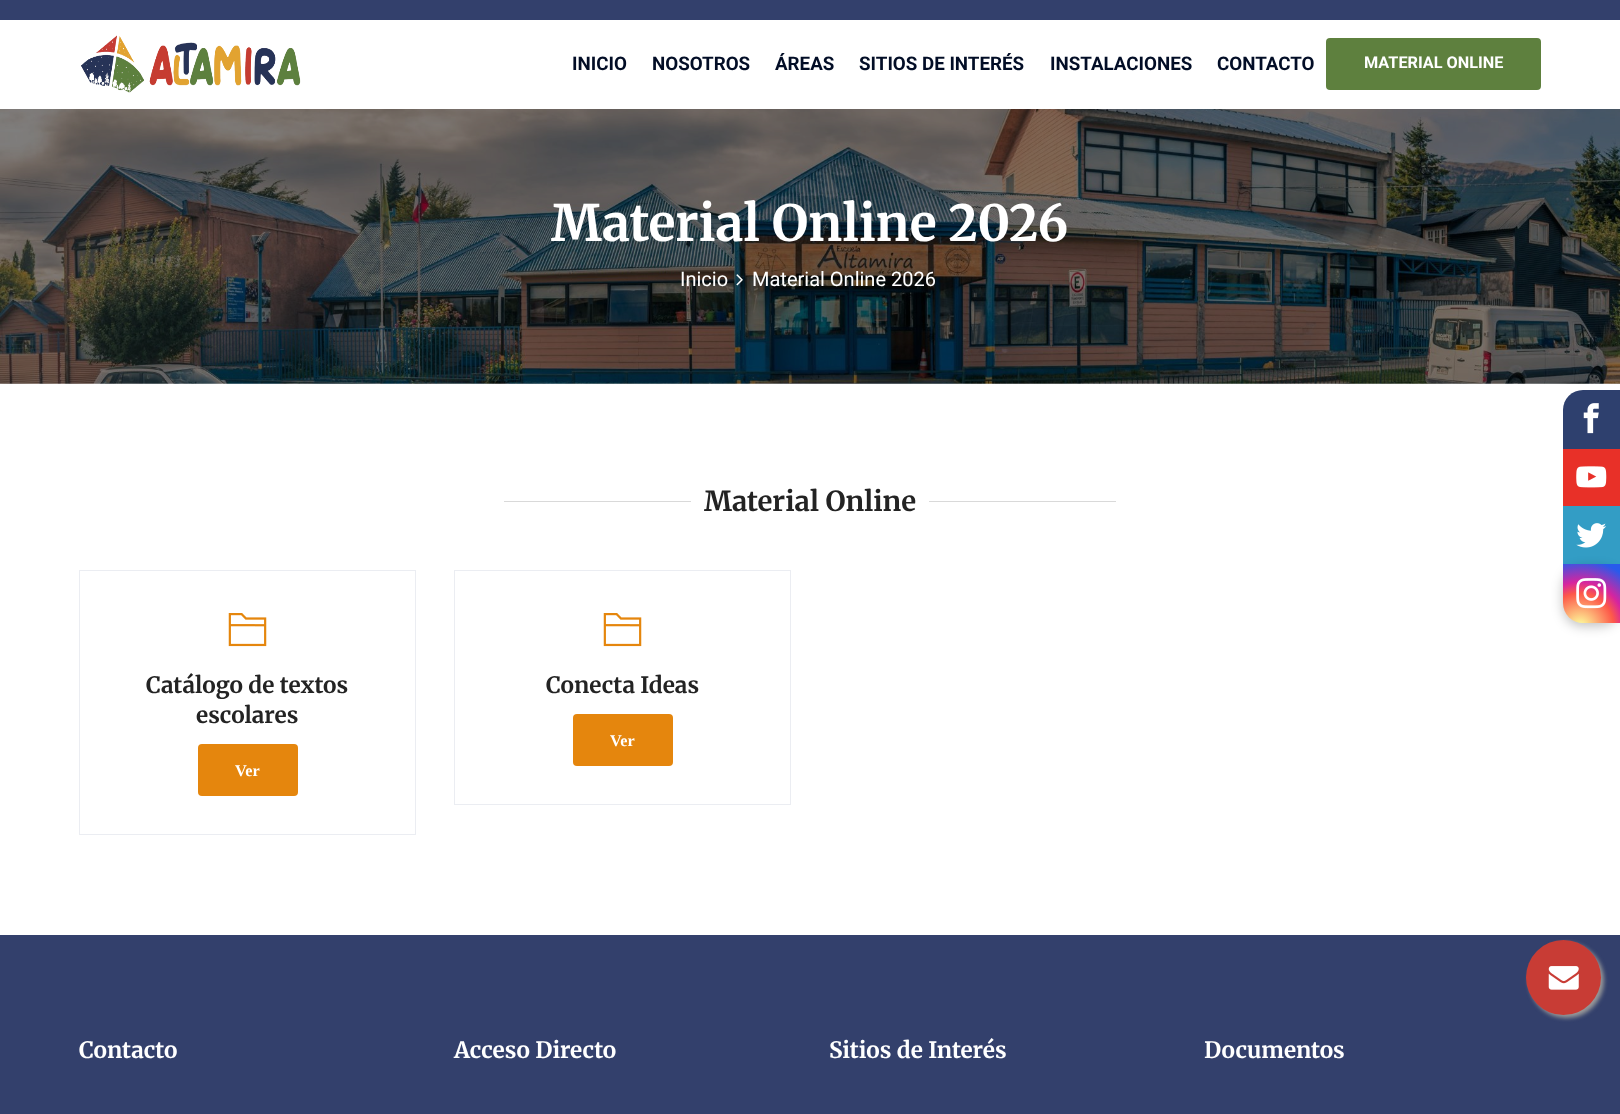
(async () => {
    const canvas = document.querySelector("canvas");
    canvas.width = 1620;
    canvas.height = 1114;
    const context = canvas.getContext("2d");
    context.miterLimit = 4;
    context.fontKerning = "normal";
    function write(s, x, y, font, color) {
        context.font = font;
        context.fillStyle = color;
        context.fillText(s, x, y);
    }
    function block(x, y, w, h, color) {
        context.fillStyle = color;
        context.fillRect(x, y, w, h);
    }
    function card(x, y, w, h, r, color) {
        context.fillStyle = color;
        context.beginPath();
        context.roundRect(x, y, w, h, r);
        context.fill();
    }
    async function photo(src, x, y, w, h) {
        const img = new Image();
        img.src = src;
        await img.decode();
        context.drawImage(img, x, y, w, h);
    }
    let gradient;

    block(0, 0, 1620, 1114, "rgb(255, 255, 255)");
    block(0, 0, 1620, 20, "rgb(51, 64, 108)");
    await photo("media/1.png", 81, 35, 220, 58);
    write("INICIO", 572, 70, "bold 18.75px Roboto", "rgb(2, 13, 38)");
    write("NOSOTROS", 652, 70, "bold 18.75px Roboto", "rgb(2, 13, 38)");
    write("ÁREAS", 775, 70, "bold 18.75px Roboto", "rgb(2, 13, 38)");
    write("SITIOS DE INTERÉS", 859, 70, "bold 18.75px Roboto", "rgb(2, 13, 38)");
    write("INSTALACIONES", 1050, 70, "bold 18.75px Roboto", "rgb(2, 13, 38)");
    write("CONTACTO", 1217, 70, "bold 18.75px Roboto", "rgb(2, 13, 38)");
    card(1326, 38, 215, 52, 4, "rgb(94, 128, 62)");
    write("MATERIAL ONLINE", 1364, 68, "bold 16.25px Roboto", "rgb(255, 255, 255)");
    block(0, 935, 1620, 179, "rgb(51, 64, 108)");
    context.fillStyle = "rgb(153, 153, 153)";
    context.filter = "blur(2px)";
    context.beginPath();
    context.roundRect(1529, 943, 75, 75, 37.5);
    context.fill();
    context.filter = "none";
    context.fillStyle = "rgb(200, 60, 53)";
    context.beginPath();
    context.arc(1563.5, 977.5, 37.5, 0, Math.PI * 2);
    context.fill();
    await photo("media/2.png", 1548, 966, 31, 24);
    await photo("media/3.png", 0, 109, 1620, 275);
    write("Material Online 2026", 551, 241, "bold 50px Merriweather", "rgb(255, 255, 255)");
    write("Inicio", 680, 286, "20px Roboto", "rgb(255, 255, 255)");
    await photo("media/4.png", 736, 274, 7, 12);
    write("Material Online 2026", 752, 286, "20px Roboto", "rgb(255, 255, 255)");
    block(504, 501, 187, 1, "rgb(217, 217, 217)");
    write("Material Online", 704, 511, "bold 27.5px Merriweather", "rgb(35, 35, 35)");
    block(929, 501, 187, 1, "rgb(217, 217, 217)");
    context.strokeStyle = "rgb(235, 237, 242)";
    context.strokeRect(79.5, 570.5, 336, 264);
    await photo("media/5.png", 228, 613, 39, 34);
    write("Catálogo de textos", 146, 693, "bold 22.5px Merriweather", "rgb(35, 35, 35)");
    write("escolares", 196, 723, "bold 22.5px Merriweather", "rgb(35, 35, 35)");
    card(198, 744, 100, 52, 4, "rgb(229, 134, 13)");
    write("Ver", 235, 776, "bold 16.25px Liberation Serif", "rgb(255, 255, 255)");
    context.strokeRect(454.5, 570.5, 336, 234);
    await photo("media/5.png", 603, 613, 39, 34);
    write("Conecta Ideas", 546, 693, "bold 22.5px Merriweather", "rgb(35, 35, 35)");
    card(573, 714, 100, 52, 4, "rgb(229, 134, 13)");
    write("Ver", 610, 746, "bold 16.25px Liberation Serif", "rgb(255, 255, 255)");
    write("Contacto", 79, 1058, "bold 22.5px Merriweather", "rgb(255, 255, 255)");
    write("Acceso Directo", 454, 1058, "bold 22.5px Merriweather", "rgb(255, 255, 255)");
    write("Sitios de Interés", 829, 1058, "bold 22.5px Merriweather", "rgb(255, 255, 255)");
    write("Documentos", 1204, 1058, "bold 22.5px Merriweather", "rgb(255, 255, 255)");
    context.fillStyle = "rgb(46, 64, 110)";
    context.beginPath();
    context.roundRect(1563, 390, 57, 59, [20, 0, 0, 0]);
    context.fill();
    await photo("media/6.png", 1583, 403, 16, 31);
    block(1563, 449, 57, 57, "rgb(232, 48, 40)");
    await photo("media/7.png", 1576, 466, 31, 22);
    block(1563, 506, 57, 58, "rgb(51, 157, 197)");
    await photo("media/8.png", 1576, 523, 31, 25);
    context.fillStyle = "rgba(0, 0, 0, 0.25)";
    context.filter = "blur(6px)";
    context.beginPath();
    context.roundRect(1563, 568, 57, 58, 20);
    context.fill();
    context.filter = "none";
    gradient = context.createRadialGradient(1580, 627, 0, 1580, 627, 75);
    gradient.addColorStop(0, "rgb(253, 244, 151)");
    gradient.addColorStop(0.05, "rgb(253, 244, 151)");
    gradient.addColorStop(0.45, "rgb(253, 89, 73)");
    gradient.addColorStop(0.6, "rgb(214, 36, 159)");
    gradient.addColorStop(0.9, "rgb(40, 90, 235)");
    context.fillStyle = gradient;
    context.beginPath();
    context.roundRect(1563, 564, 57, 59, [0, 0, 0, 20]);
    context.fill();
    await photo("media/9.png", 1576, 578, 31, 31);
})();
